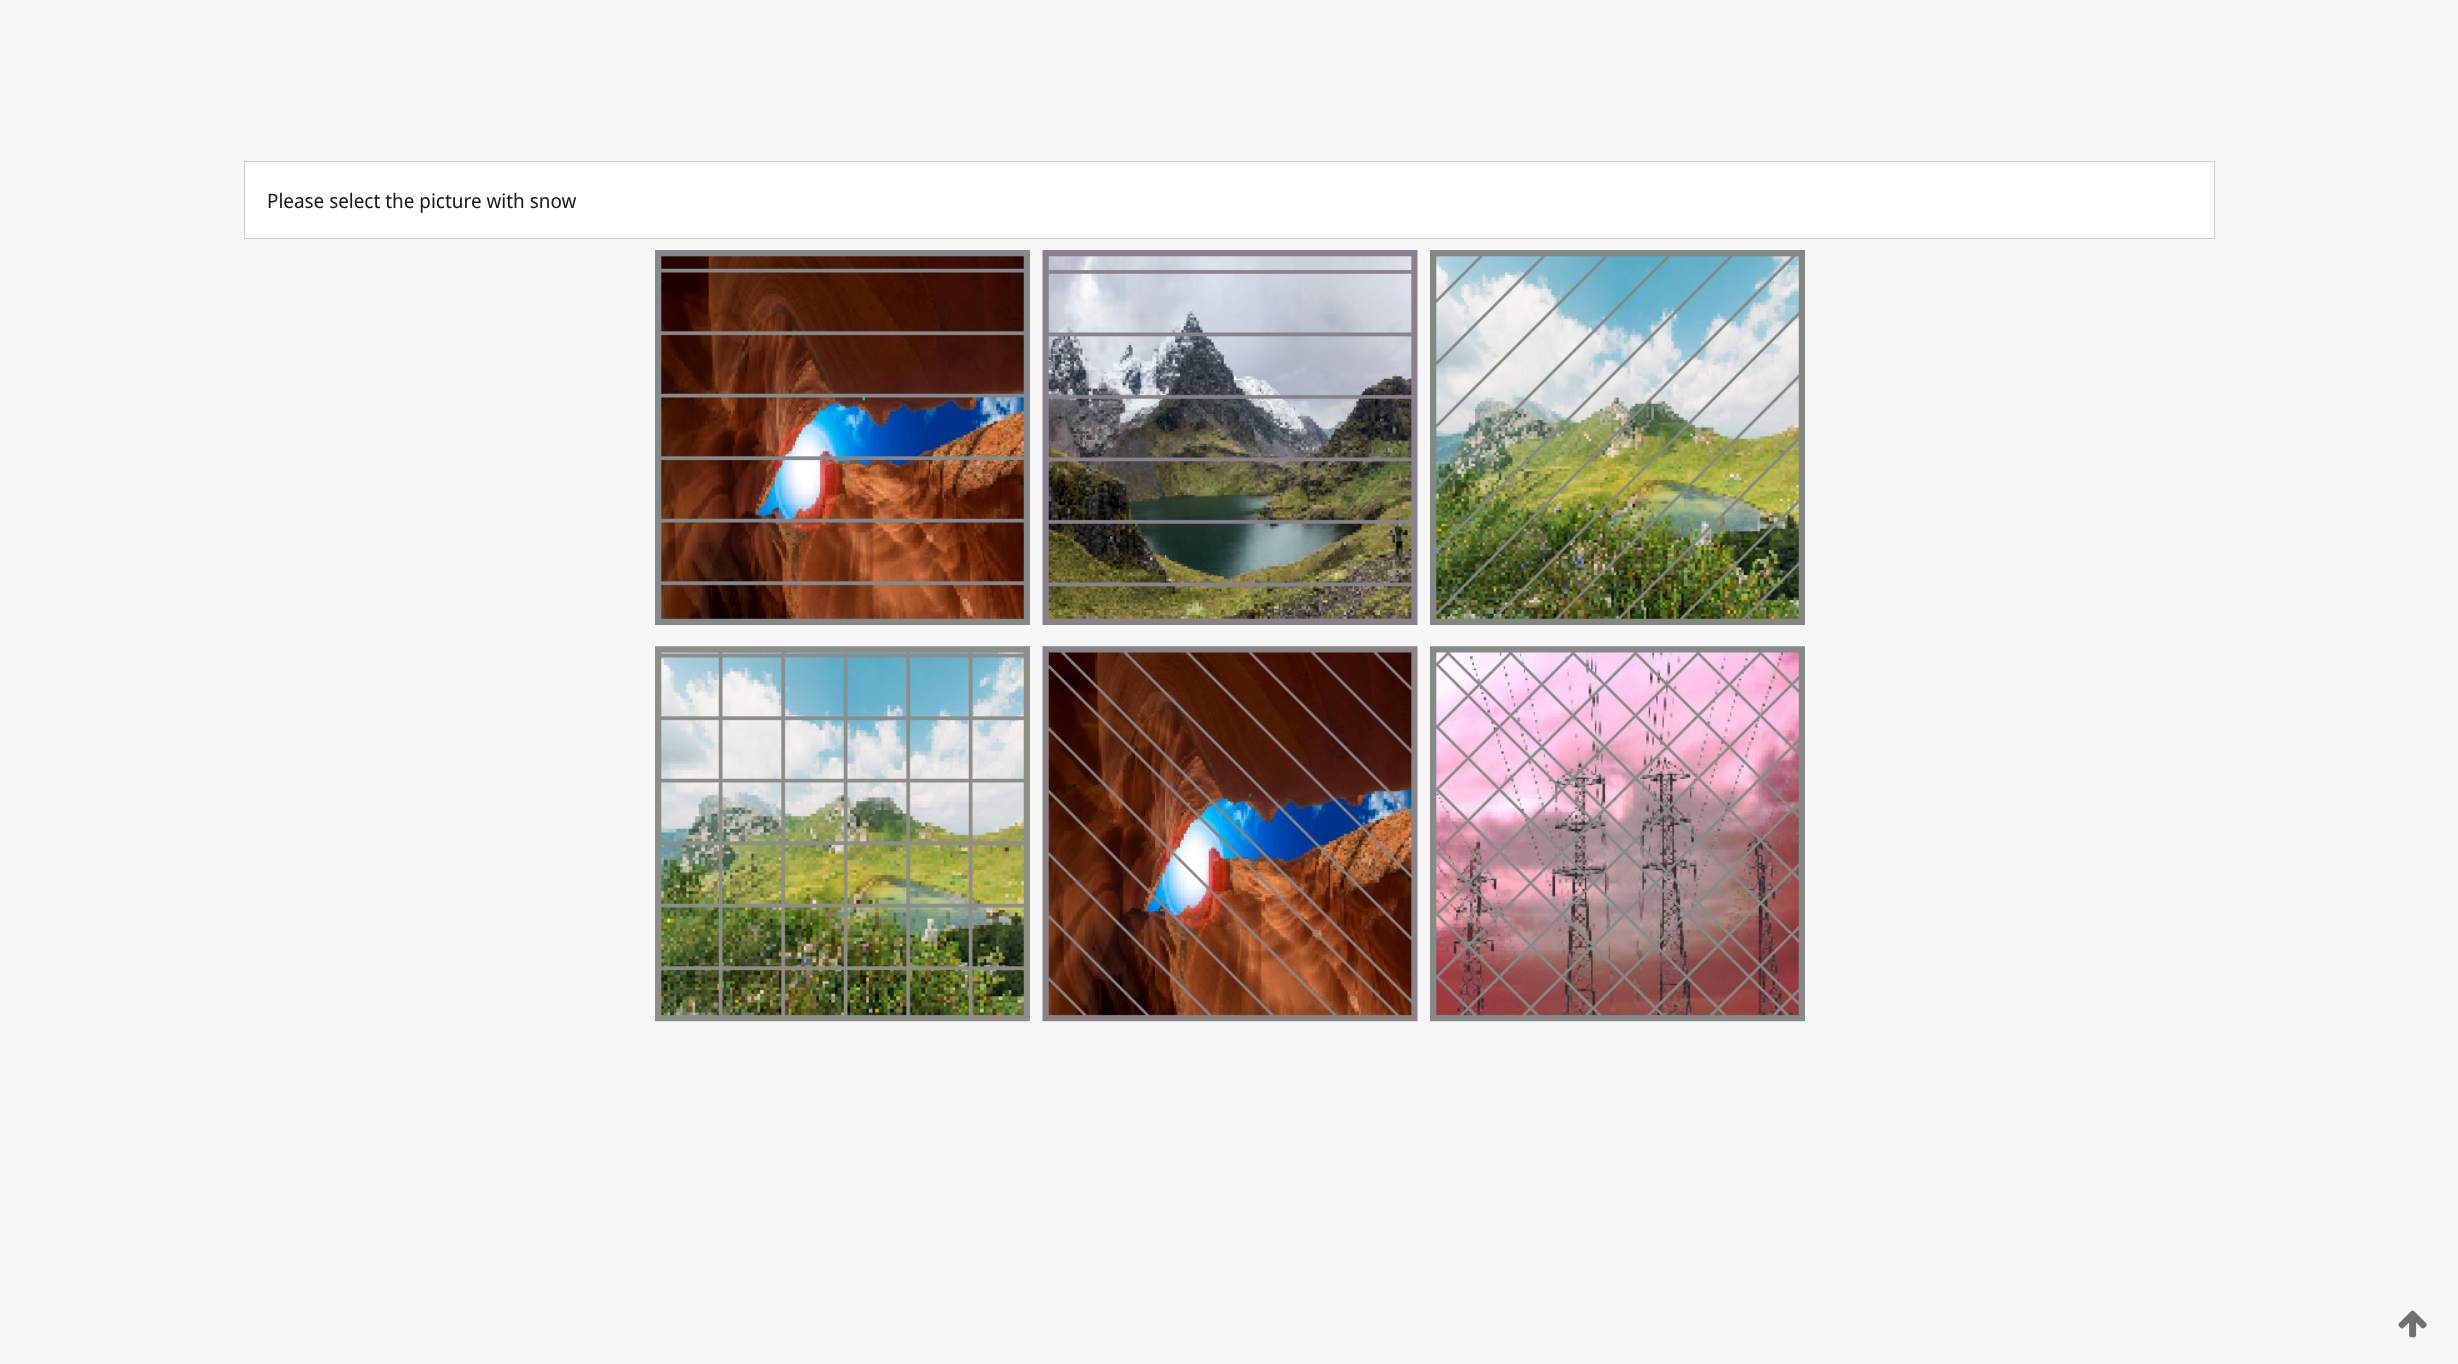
(async () => {
    const canvas = document.querySelector("canvas");
    canvas.width = 2458;
    canvas.height = 1364;
    const context = canvas.getContext("2d");
    context.miterLimit = 4;
    context.fontKerning = "normal";
    function write(s, x, y, font, color) {
        context.font = font;
        context.fillStyle = color;
        context.fillText(s, x, y);
    }
    function block(x, y, w, h, color) {
        context.fillStyle = color;
        context.fillRect(x, y, w, h);
    }
    async function photo(src, x, y, w, h) {
        const img = new Image();
        img.src = src;
        await img.decode();
        context.drawImage(img, x, y, w, h);
    }

    block(0, 0, 2458, 1364, "rgb(247, 247, 247)");
    block(245, 163, 1969, 75, "rgb(255, 255, 255)");
    context.strokeStyle = "rgb(204, 204, 204)";
    context.strokeRect(244.5, 161.5, 1970, 77);
    write("Please select the picture with snow", 267, 208, "20px Noto Sans Display", "rgb(26, 26, 26)");
    await photo("media/1.png", 655, 250, 375, 375);
    await photo("media/2.png", 1042, 250, 376, 375);
    await photo("media/3.png", 1430, 250, 375, 375);
    await photo("media/4.png", 655, 646, 375, 376);
    await photo("media/5.png", 1042, 646, 376, 376);
    await photo("media/6.png", 1430, 646, 375, 376);
    await photo("media/7.png", 2398, 1310, 29, 28);
})();
